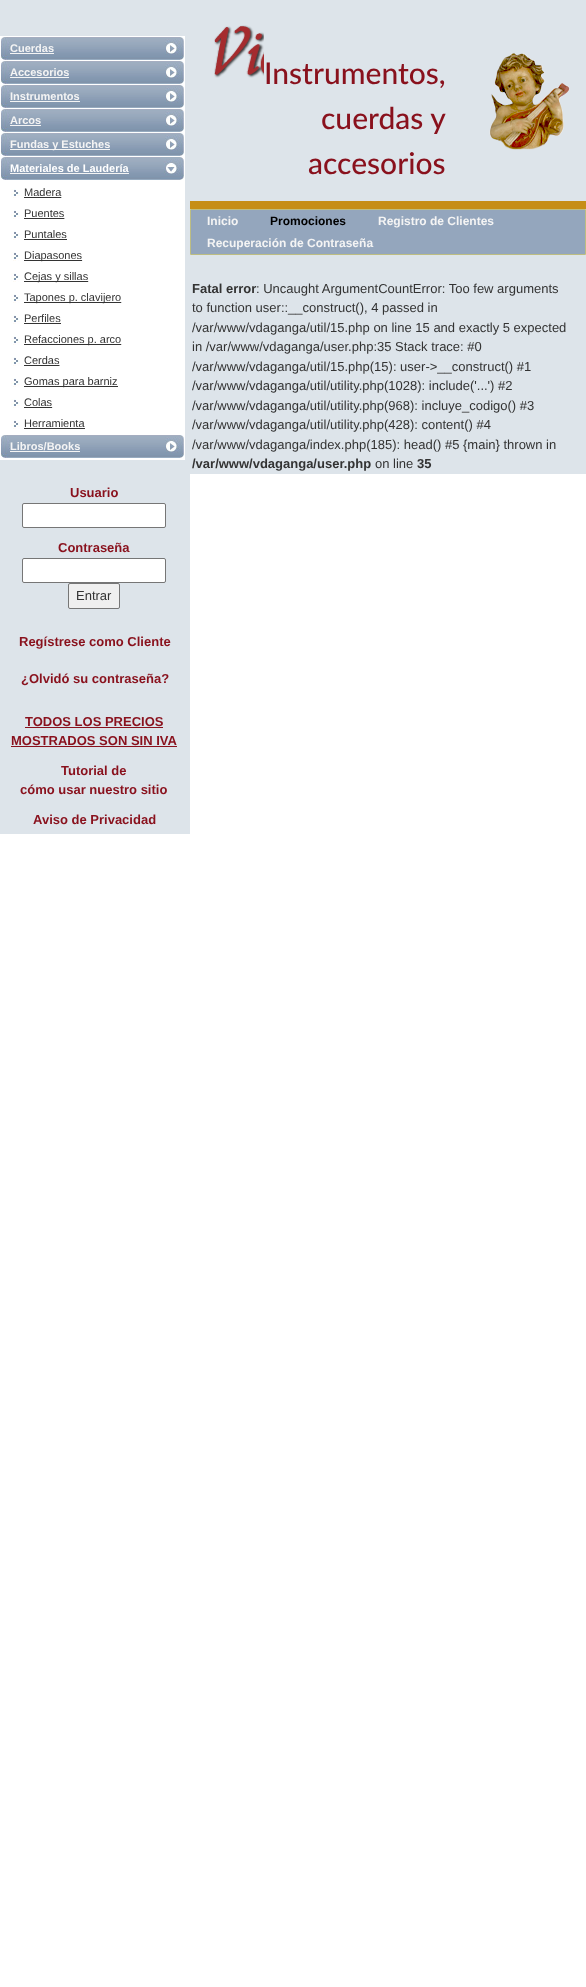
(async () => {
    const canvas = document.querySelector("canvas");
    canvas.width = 586;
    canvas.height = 1987;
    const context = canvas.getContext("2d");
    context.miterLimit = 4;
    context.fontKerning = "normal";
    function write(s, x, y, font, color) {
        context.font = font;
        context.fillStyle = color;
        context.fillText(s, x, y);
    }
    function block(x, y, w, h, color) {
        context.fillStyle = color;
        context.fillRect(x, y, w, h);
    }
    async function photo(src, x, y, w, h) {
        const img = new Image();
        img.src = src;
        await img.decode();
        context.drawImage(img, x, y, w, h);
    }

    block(0, 0, 586, 1987, "rgb(255, 255, 255)");
    block(0, 0, 190, 834, "rgb(221, 228, 234)");
    block(0, 36, 185, 424, "rgb(255, 255, 255)");
    await photo("media/1.png", 10, 37, 155, 23);
    await photo("media/2.png", 1, 37, 9, 23);
    write("Cuerdas", 10, 52, "bold 11px Liberation Sans", "rgb(244, 244, 244)");
    block(10, 53, 44, 1, "rgb(244, 244, 244)");
    await photo("media/3.png", 165, 37, 19, 23);
    await photo("media/1.png", 10, 61, 155, 23);
    await photo("media/2.png", 1, 61, 9, 23);
    write("Accesorios", 10, 76, "bold 11px Liberation Sans", "rgb(244, 244, 244)");
    block(10, 77, 59, 1, "rgb(244, 244, 244)");
    await photo("media/3.png", 165, 61, 19, 23);
    await photo("media/1.png", 10, 85, 155, 23);
    await photo("media/2.png", 1, 85, 9, 23);
    write("Instrumentos", 10, 100, "bold 11px Liberation Sans", "rgb(244, 244, 244)");
    block(10, 101, 70, 1, "rgb(244, 244, 244)");
    await photo("media/3.png", 165, 85, 19, 23);
    await photo("media/1.png", 10, 109, 155, 23);
    await photo("media/2.png", 1, 109, 9, 23);
    write("Arcos", 10, 124, "bold 11px Liberation Sans", "rgb(244, 244, 244)");
    block(10, 125, 31, 1, "rgb(244, 244, 244)");
    await photo("media/3.png", 165, 109, 19, 23);
    await photo("media/1.png", 10, 133, 155, 23);
    await photo("media/2.png", 1, 133, 9, 23);
    block(10, 149, 100, 1, "rgb(244, 244, 244)");
    write("Fundas y Estuches", 10, 148, "bold 11px Liberation Sans", "rgb(244, 244, 244)");
    await photo("media/3.png", 165, 133, 19, 23);
    await photo("media/4.png", 10, 157, 151, 23);
    await photo("media/2.png", 1, 157, 9, 23);
    write("Materiales de Laudería", 10, 172, "bold 11px Liberation Sans", "rgb(255, 255, 255)");
    block(10, 173, 119, 1, "rgb(244, 244, 244)");
    await photo("media/5.png", 161, 157, 23, 23);
    await photo("media/6.png", 11, 189, 51, 9);
    write("Madera", 24, 196, "11px Liberation Sans", "rgb(51, 51, 51)");
    await photo("media/7.png", 11, 210, 54, 9);
    write("Puentes", 24, 217, "11px Liberation Sans", "rgb(51, 51, 51)");
    await photo("media/8.png", 11, 231, 9, 9);
    write("Puntales", 24, 238, "11px Liberation Sans", "rgb(51, 51, 51)");
    block(24, 239, 43, 1, "rgb(51, 51, 51)");
    await photo("media/9.png", 11, 252, 72, 9);
    block(40, 260, 3, 1, "rgb(51, 51, 51)");
    write("Diapasones", 24, 259, "11px Liberation Sans", "rgb(51, 51, 51)");
    await photo("media/10.png", 11, 273, 78, 9);
    block(37, 281, 22, 1, "rgb(51, 51, 51)");
    write("Cejas y sillas", 24, 280, "11px Liberation Sans", "rgb(51, 51, 51)");
    await photo("media/11.png", 11, 294, 111, 9);
    block(35, 302, 71, 1, "rgb(51, 51, 51)");
    write("Tapones p. clavijero", 24, 301, "11px Liberation Sans", "rgb(51, 51, 51)");
    await photo("media/8.png", 11, 315, 9, 9);
    write("Perfiles", 24, 322, "11px Liberation Sans", "rgb(51, 51, 51)");
    block(24, 323, 37, 1, "rgb(51, 51, 51)");
    await photo("media/12.png", 11, 336, 111, 9);
    block(87, 344, 3, 1, "rgb(51, 51, 51)");
    write("Refacciones p. arco", 24, 343, "11px Liberation Sans", "rgb(51, 51, 51)");
    await photo("media/13.png", 11, 357, 49, 9);
    write("Cerdas", 24, 364, "11px Liberation Sans", "rgb(51, 51, 51)");
    await photo("media/8.png", 11, 378, 9, 9);
    block(24, 386, 94, 1, "rgb(51, 51, 51)");
    write("Gomas para barniz", 24, 385, "11px Liberation Sans", "rgb(51, 51, 51)");
    await photo("media/14.png", 11, 399, 42, 9);
    write("Colas", 24, 406, "11px Liberation Sans", "rgb(51, 51, 51)");
    await photo("media/8.png", 11, 420, 9, 9);
    write("Herramienta", 24, 427, "11px Liberation Sans", "rgb(51, 51, 51)");
    block(24, 428, 61, 1, "rgb(51, 51, 51)");
    await photo("media/1.png", 10, 435, 155, 23);
    await photo("media/2.png", 1, 435, 9, 23);
    write("Libros/Books", 10, 450, "bold 11px Liberation Sans", "rgb(244, 244, 244)");
    block(10, 451, 70, 1, "rgb(244, 244, 244)");
    await photo("media/3.png", 165, 435, 19, 23);
    write("Usuario", 70, 497, "bold 13px Liberation Sans", "rgb(137, 17, 29)");
    context.fillStyle = "rgb(255, 255, 255)";
    context.beginPath();
    context.roundRect(22.5, 503.5, 143, 24, 1.5);
    context.fill();
    context.strokeStyle = "rgb(118, 118, 118)";
    context.stroke();
    write("Contraseña", 58, 552, "bold 13px Liberation Sans", "rgb(137, 17, 29)");
    context.fillStyle = "rgb(255, 255, 255)";
    context.beginPath();
    context.roundRect(22.5, 558.5, 143, 24, 1.5);
    context.fill();
    context.stroke();
    context.fillStyle = "rgb(239, 239, 239)";
    context.beginPath();
    context.roundRect(68.5, 583.5, 51, 25, 1.5);
    context.fill();
    context.stroke();
    write("Entrar", 76, 600, "13px Liberation Sans", "rgb(51, 51, 51)");
    write("Regístrese como Cliente", 19, 646, "bold 13px Liberation Sans", "rgb(137, 17, 29)");
    write("¿Olvidó su contraseña?", 21, 683, "bold 13px Liberation Sans", "rgb(137, 17, 29)");
    write("TODOS LOS PRECIOS", 25, 726, "bold 13px Liberation Sans", "rgb(137, 17, 29)");
    block(25, 727, 138, 1, "rgb(137, 17, 29)");
    write("MOSTRADOS SON SIN IVA", 11, 745, "bold 13px Liberation Sans", "rgb(137, 17, 29)");
    block(11, 746, 166, 1, "rgb(137, 17, 29)");
    write("Tutorial de", 61, 775, "bold 13px Liberation Sans", "rgb(137, 17, 29)");
    write("cómo usar nuestro sitio", 20, 794, "bold 13px Liberation Sans", "rgb(137, 17, 29)");
    write("Aviso de Privacidad", 33, 824, "bold 13px Liberation Sans", "rgb(137, 17, 29)");
    block(190, 0, 396, 201, "rgb(221, 228, 234)");
    await photo("media/15.png", 214, 25, 50, 53);
    await photo("media/16.png", 489, 53, 81, 97);
    write("Instrumentos,", 264, 84, "500 30px Lato", "rgb(137, 17, 29)");
    write("cuerdas y", 321, 129, "500 30px Lato", "rgb(137, 17, 29)");
    write("accesorios", 308, 174, "500 30px Lato", "rgb(137, 17, 29)");
    block(190, 201, 396, 8, "rgb(198, 142, 23)");
    block(190, 255, 396, 219, "rgb(221, 228, 234)");
    context.fillStyle = "rgb(148, 166, 189)";
    context.beginPath();
    context.rect(190.5, 209.5, 395, 45);
    context.fill();
    context.strokeStyle = "rgb(189, 189, 130)";
    context.stroke();
    write("Inicio", 207, 225, "bold 12px Liberation Sans", "rgb(244, 244, 244)");
    write("Promociones", 270, 225, "bold 12px Liberation Sans", "rgb(0, 0, 0)");
    write("Registro de Clientes", 378, 225, "bold 12px Liberation Sans", "rgb(244, 244, 244)");
    write("Recuperación de Contraseña", 207, 247, "bold 12px Liberation Sans", "rgb(244, 244, 244)");
    write("Fatal error", 192, 293, "bold 13px Liberation Sans", "rgb(51, 51, 51)");
    write(": Uncaught ArgumentCountError: Too few arguments", 256, 293, "13px Liberation Sans", "rgb(51, 51, 51)");
    write("to function user::__construct(), 4 passed in", 192, 312, "13px Liberation Sans", "rgb(51, 51, 51)");
    write("/var/www/vdaganga/util/15.php on line 15 and exactly 5 expected", 192, 332, "13px Liberation Sans", "rgb(51, 51, 51)");
    write("in /var/www/vdaganga/user.php:35 Stack trace: #0", 192, 351, "13px Liberation Sans", "rgb(51, 51, 51)");
    write("/var/www/vdaganga/util/15.php(15): user->__construct() #1", 192, 371, "13px Liberation Sans", "rgb(51, 51, 51)");
    write("/var/www/vdaganga/util/utility.php(1028): include('...') #2", 192, 390, "13px Liberation Sans", "rgb(51, 51, 51)");
    write("/var/www/vdaganga/util/utility.php(968): incluye_codigo() #3", 192, 410, "13px Liberation Sans", "rgb(51, 51, 51)");
    write("/var/www/vdaganga/util/utility.php(428): content() #4", 192, 429, "13px Liberation Sans", "rgb(51, 51, 51)");
    write("/var/www/vdaganga/index.php(185): head() #5 {main} thrown in", 192, 449, "13px Liberation Sans", "rgb(51, 51, 51)");
    write("/var/www/vdaganga/user.php", 192, 468, "bold 13px Liberation Sans", "rgb(51, 51, 51)");
    write("on line", 375, 468, "13px Liberation Sans", "rgb(51, 51, 51)");
    write("35", 417, 468, "bold 13px Liberation Sans", "rgb(51, 51, 51)");
})();
